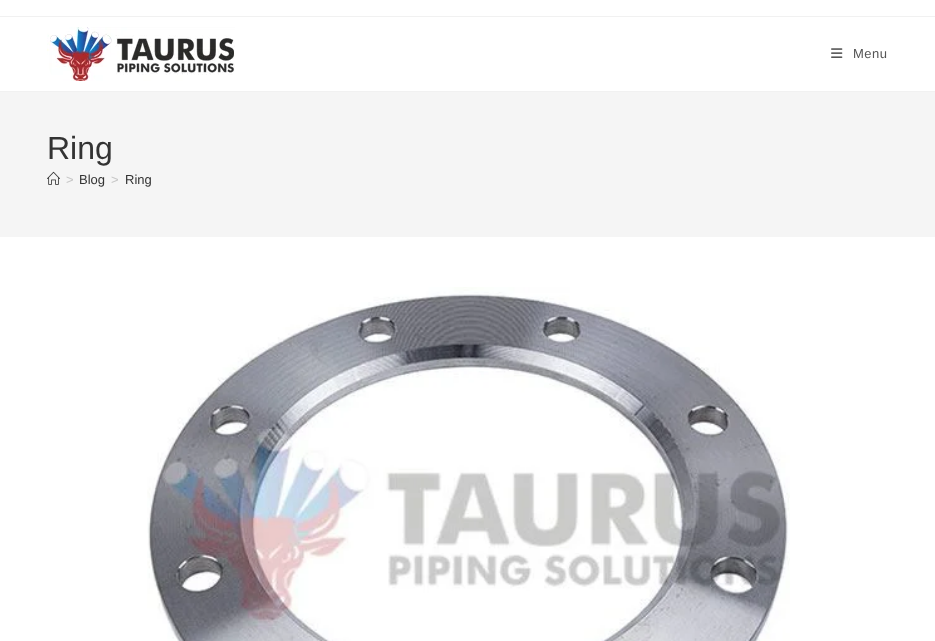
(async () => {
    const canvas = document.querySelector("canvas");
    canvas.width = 935;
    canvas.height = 641;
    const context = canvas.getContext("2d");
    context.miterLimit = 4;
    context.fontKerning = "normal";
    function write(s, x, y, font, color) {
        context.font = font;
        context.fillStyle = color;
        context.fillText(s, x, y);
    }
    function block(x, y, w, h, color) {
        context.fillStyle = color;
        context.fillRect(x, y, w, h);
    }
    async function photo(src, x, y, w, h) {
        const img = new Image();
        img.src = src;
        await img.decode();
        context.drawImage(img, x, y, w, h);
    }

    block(0, 0, 935, 641, "rgb(255, 255, 255)");
    block(0, 16, 935, 1, "rgb(241, 241, 241)");
    block(0, 91, 935, 1, "rgb(241, 241, 241)");
    await photo("media/1.png", 47, 27, 188, 54);
    await photo("media/2.png", 831, 48, 12, 10);
    context.letterSpacing = "0.5px";
    write("Menu", 853, 58, "13px Liberation Sans", "rgb(85, 85, 85)");
    block(0, 92, 935, 145, "rgb(245, 245, 245)");
    context.letterSpacing = "0px";
    write("Ring", 47, 159, "32px Liberation Sans", "rgb(51, 51, 51)");
    await photo("media/3.png", 47, 171, 13, 14);
    write(">", 66, 184, "13px Liberation Sans", "rgb(198, 198, 198)");
    write("Blog", 79, 184, "13px Liberation Sans", "rgb(51, 51, 51)");
    write(">", 111, 184, "13px Liberation Sans", "rgb(198, 198, 198)");
    write("Ring", 125, 184, "13px Liberation Sans", "rgb(51, 51, 51)");
    await photo("media/4.png", 147, 287, 643, 354);
})();
